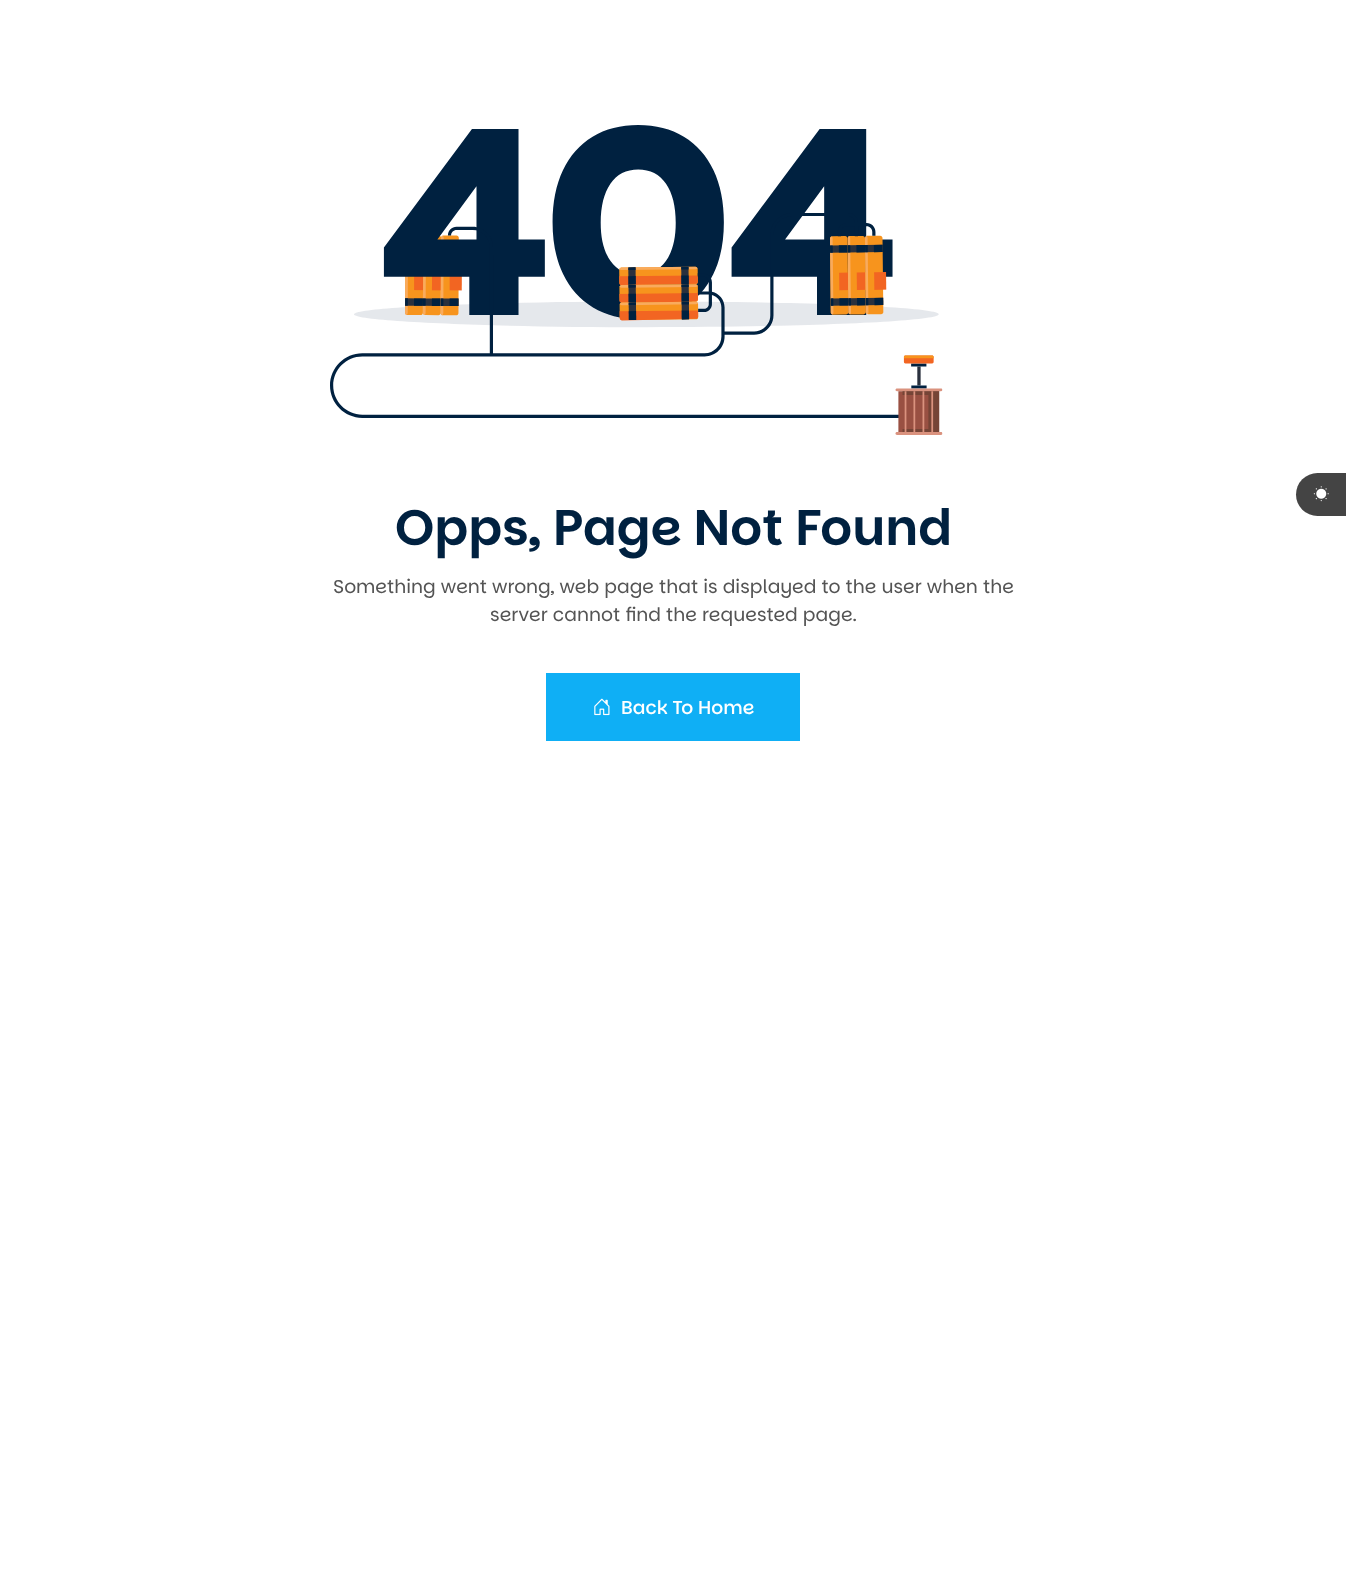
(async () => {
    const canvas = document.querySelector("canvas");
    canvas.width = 1346;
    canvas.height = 1575;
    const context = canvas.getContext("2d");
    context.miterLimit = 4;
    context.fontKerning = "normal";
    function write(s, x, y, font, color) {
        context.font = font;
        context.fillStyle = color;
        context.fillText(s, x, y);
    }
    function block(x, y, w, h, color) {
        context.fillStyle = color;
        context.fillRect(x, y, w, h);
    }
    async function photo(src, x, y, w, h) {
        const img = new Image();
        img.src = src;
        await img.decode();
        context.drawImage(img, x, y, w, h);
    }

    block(0, 0, 1346, 1575, "rgb(255, 255, 255)");
    context.fillStyle = "rgb(68, 68, 68)";
    context.beginPath();
    context.roundRect(1296, 473, 50, 43, [21.5, 0, 0, 21.5]);
    context.fill();
    await photo("media/1.png", 1313, 486, 16, 16);
    await photo("media/2.png", 330, 125, 613, 310);
    write("Opps, Page Not Found", 395, 545, "600 50px Parkinsans", "rgb(0, 33, 64)");
    write("Something went wrong, web page that is displayed to the user when the", 333, 593, "18.75px Parkinsans", "rgb(84, 84, 84)");
    write("server cannot find the requested page.", 490, 621, "18.75px Parkinsans", "rgb(84, 84, 84)");
    block(546, 673, 254, 68, "rgb(15, 175, 245)");
    await photo("media/3.png", 594, 698, 16, 18);
    write("Back To Home", 621, 714, "500 18.75px Parkinsans", "rgb(255, 255, 255)");
})();
